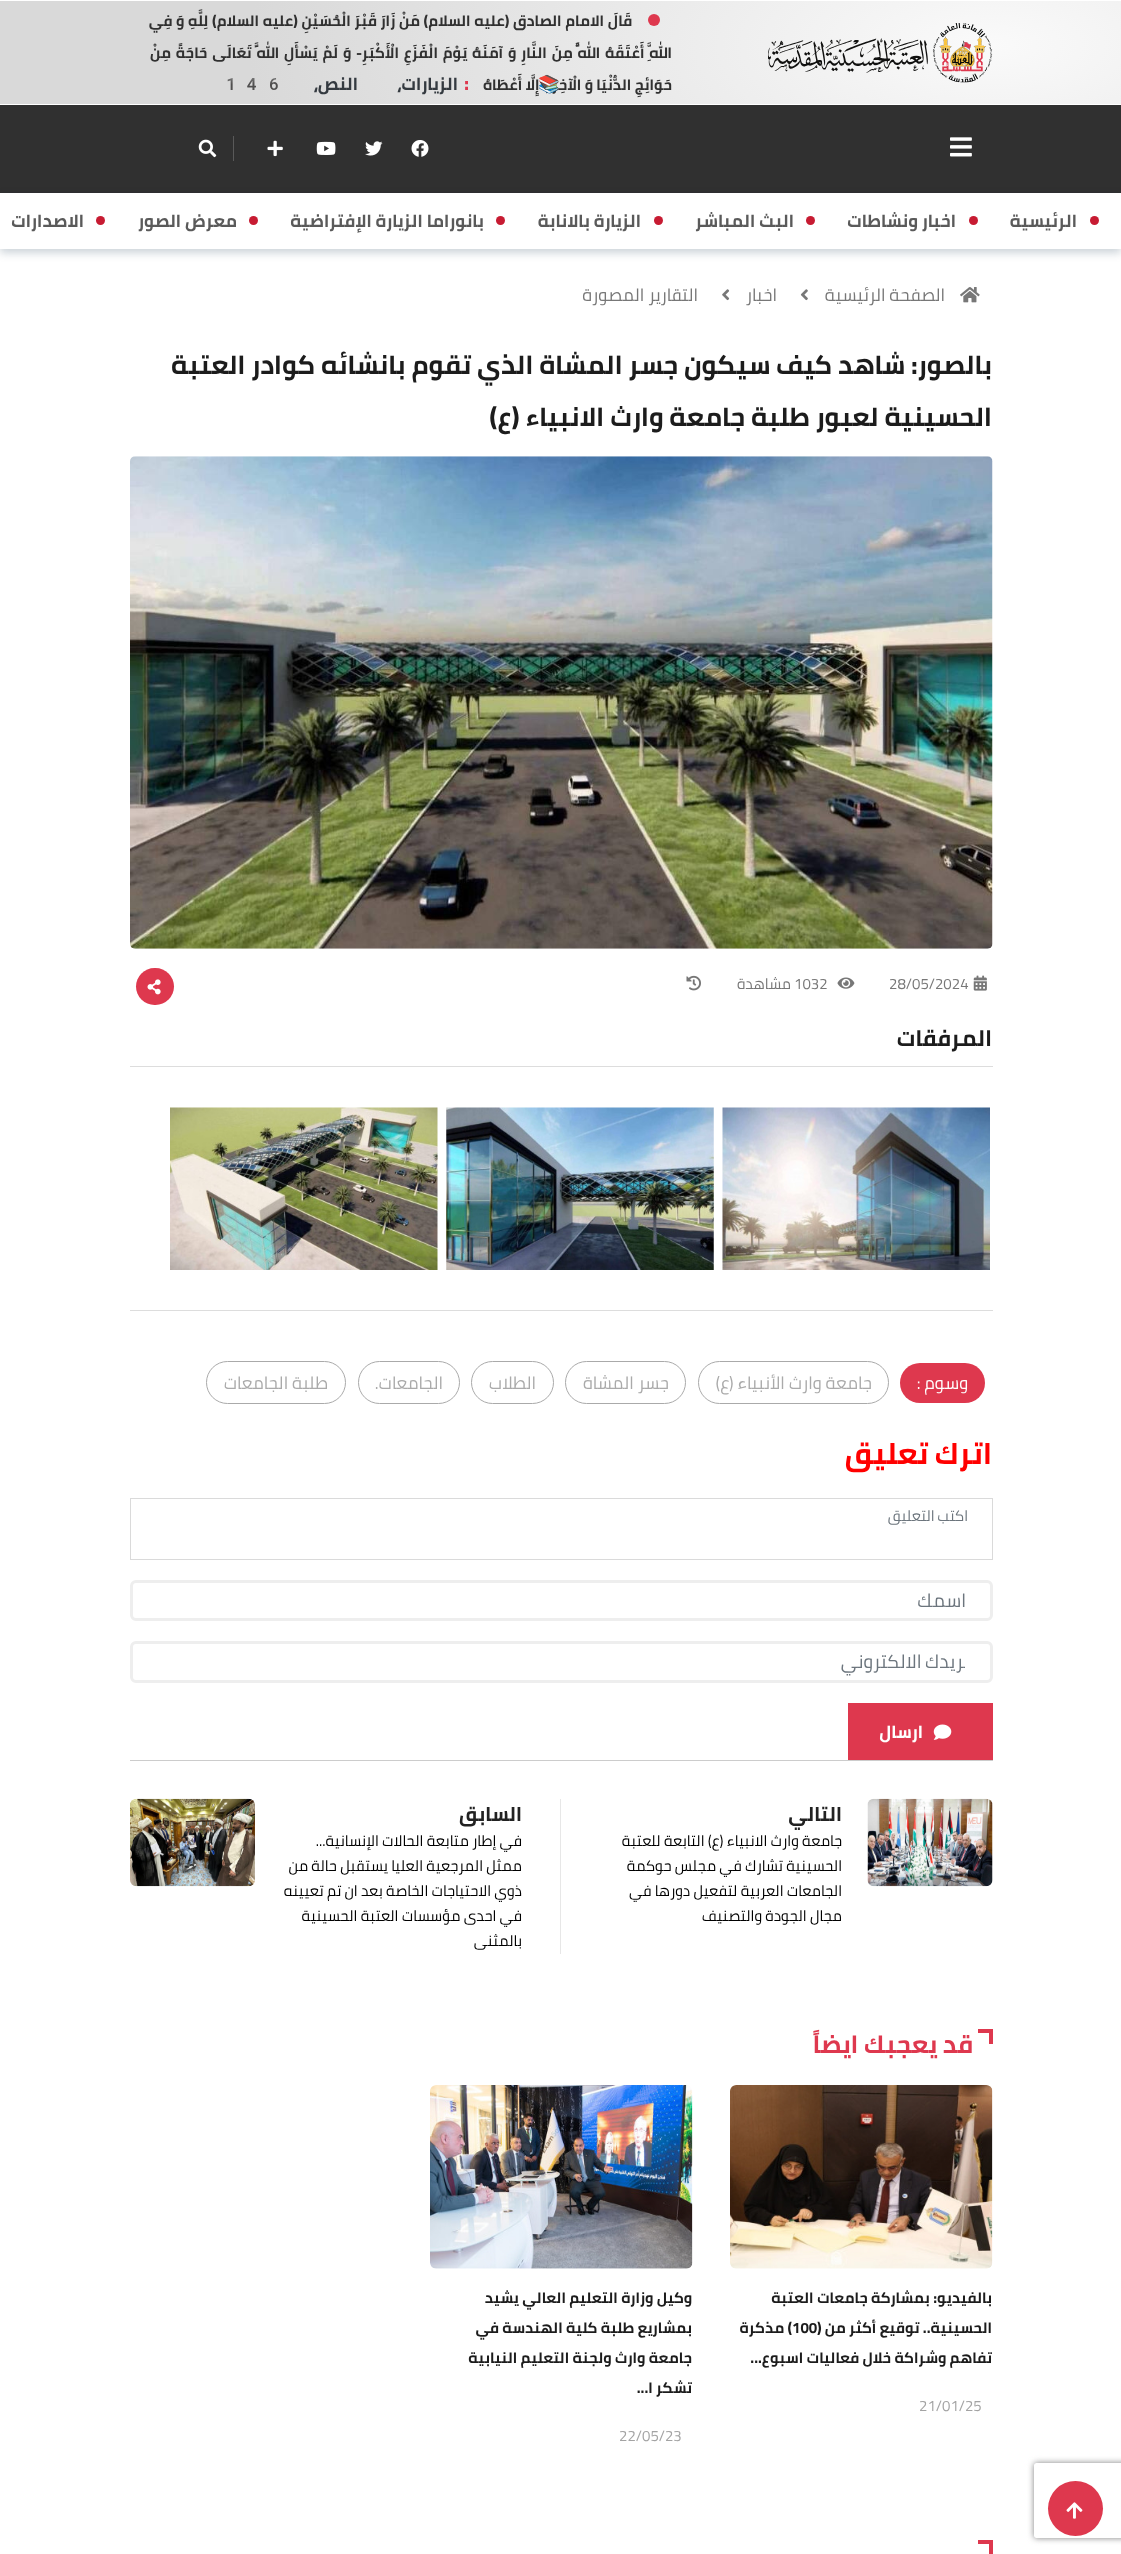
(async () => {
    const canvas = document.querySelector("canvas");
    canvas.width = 1121;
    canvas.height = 2554;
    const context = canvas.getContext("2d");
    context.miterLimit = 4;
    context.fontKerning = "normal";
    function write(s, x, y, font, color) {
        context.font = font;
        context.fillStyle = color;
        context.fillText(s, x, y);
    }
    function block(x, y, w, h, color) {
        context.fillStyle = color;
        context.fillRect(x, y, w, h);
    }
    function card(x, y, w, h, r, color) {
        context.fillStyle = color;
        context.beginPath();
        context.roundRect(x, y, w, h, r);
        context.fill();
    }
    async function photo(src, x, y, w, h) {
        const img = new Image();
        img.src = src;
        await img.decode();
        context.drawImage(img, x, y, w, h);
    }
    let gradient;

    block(0, 0, 1121, 2554, "rgb(255, 255, 255)");
    gradient = context.createRadialGradient(990, 108.41, 0, 990, 108.41, 742);
    gradient.addColorStop(0, "rgb(250, 250, 250)");
    gradient.addColorStop(1, "rgb(217, 217, 217)");
    context.fillStyle = gradient;
    context.beginPath();
    context.rect(0, 1, 1121, 103);
    context.save();
    context.clip();
    context.scale(1, 308 / 742);
    context.fillRect(0, 0, 1121, 6153);
    context.restore();
    await photo("media/1.png", 768, 23, 225, 60);
    context.fillStyle = "rgb(222, 56, 78)";
    context.beginPath();
    context.arc(654, 20, 6, 0, Math.PI * 2);
    context.fill();
    context.wordSpacing = "0.4px";
    context.direction = "rtl";
    write("قَالَ الامام الصادق (عليه السلام) مَنْ زَارَ قَبْرَ الْحُسَيْنِ (عليه السلام) لِلَّهِ وَ فِي", 632, 26, "bold 15px Cairo", "rgb(48, 48, 48)");
    context.wordSpacing = "1.5px";
    write("اللَّهِ أَعْتَقَهُ اللَّهُ مِنَ النَّارِ وَ آمَنَهُ يَوْمَ الْفَزَعِ الْأَكْبَرِ- وَ لَمْ يَسْأَلِ اللَّهَ تَعَالَى حَاجَةً مِنْ", 672, 58, "bold 15px Cairo", "rgb(48, 48, 48)");
    context.wordSpacing = "0px";
    write("حَوَائِجِ الدُّنْيَا وَ الْآخِرَةِ إِلَّا أَعْطَاهُ", 672, 90, "bold 15px Cairo", "rgb(48, 48, 48)");
    context.direction = "ltr";
    write("146", 220, 90, "bold 17.5px Noto Color Emoji", "rgb(52, 58, 64)");
    context.direction = "rtl";
    write("📚", 560, 90, "bold 17.5px Noto Color Emoji", "rgb(52, 58, 64)");
    context.direction = "ltr";
    write(":", 464, 90, "bold 20px Cairo", "rgb(222, 56, 78)");
    context.direction = "rtl";
    write("الزيارات،", 458, 90, "bold 17.5px Cairo", "rgb(52, 58, 64)");
    write("النص،", 358, 90, "bold 17.5px Cairo", "rgb(52, 58, 64)");
    block(0, 105, 1121, 88, "rgb(48, 48, 48)");
    await photo("media/2.png", 950, 137, 22, 20);
    await photo("media/3.png", 411, 140, 18, 17);
    await photo("media/4.png", 365, 141, 18, 15);
    await photo("media/5.png", 316, 141, 20, 14);
    await photo("media/6.png", 267, 140, 16, 17);
    block(233, 136, 1, 25, "rgb(89, 89, 89)");
    await photo("media/7.png", 198, 139, 19, 19);
    context.fillStyle = "rgba(0, 35, 64, 0.2)";
    context.filter = "blur(4px)";
    context.beginPath();
    context.rect(0, 196, 1121, 57);
    context.fill();
    context.filter = "none";
    block(0, 193, 1121, 56, "rgb(255, 255, 255)");
    context.fillStyle = "rgb(199, 27, 50)";
    context.beginPath();
    context.arc(1094.5, 220.5, 4.5, 0, Math.PI * 2);
    context.fill();
    write("الرئيسية", 1077, 227, "bold 17.5px Cairo", "rgb(90, 90, 90)");
    context.fillStyle = "rgb(199, 27, 50)";
    context.beginPath();
    context.arc(973.5, 220.5, 4.5, 0, Math.PI * 2);
    context.fill();
    write("اخبار ونشاطات", 956, 227, "bold 17.5px Cairo", "rgb(90, 90, 90)");
    context.fillStyle = "rgb(199, 27, 50)";
    context.beginPath();
    context.arc(810.5, 220.5, 4.5, 0, Math.PI * 2);
    context.fill();
    write("البث المباشر", 794, 227, "bold 17.5px Cairo", "rgb(90, 90, 90)");
    context.fillStyle = "rgb(199, 27, 50)";
    context.beginPath();
    context.arc(658.5, 220.5, 4.5, 0, Math.PI * 2);
    context.fill();
    write("الزيارة بالانابة", 641, 227, "bold 17.5px Cairo", "rgb(90, 90, 90)");
    context.fillStyle = "rgb(199, 27, 50)";
    context.beginPath();
    context.arc(500.5, 220.5, 4.5, 0, Math.PI * 2);
    context.fill();
    write("بانوراما الزيارة الإفتراضية", 484, 227, "bold 17.5px Cairo", "rgb(90, 90, 90)");
    context.fillStyle = "rgb(199, 27, 50)";
    context.beginPath();
    context.arc(253.5, 220.5, 4.5, 0, Math.PI * 2);
    context.fill();
    write("معرض الصور", 237, 227, "bold 17.5px Cairo", "rgb(90, 90, 90)");
    context.fillStyle = "rgb(199, 27, 50)";
    context.beginPath();
    context.arc(100.5, 220.5, 4.5, 0, Math.PI * 2);
    context.fill();
    write("الاصدارات", 84, 227, "bold 17.5px Cairo", "rgb(90, 90, 90)");
    await photo("media/8.png", 960, 287, 20, 16);
    write("الصفحة الرئيسية", 945, 301, "17.5px Cairo", "rgb(119, 119, 119)");
    await photo("media/9.png", 800, 289, 8, 12);
    write("اخبار", 777, 301, "17.5px Cairo", "rgb(119, 119, 119)");
    await photo("media/10.png", 722, 289, 8, 12);
    write("التقارير المصورة", 698, 301, "17.5px Cairo", "rgb(119, 119, 119)");
    write("بالصور: شاهد كيف سيكون جسر المشاة الذي تقوم بانشائه كوادر العتبة", 992, 374, "bold 26.25px Cairo", "rgb(28, 28, 28)");
    write("الحسينية لعبور طلبة جامعة وارث الانبياء (ع)", 992, 426, "bold 26.25px Cairo", "rgb(28, 28, 28)");
    await photo("media/11.png", 130, 456, 863, 493);
    await photo("media/12.png", 973, 975, 14, 16);
    context.direction = "ltr";
    write("28/05/2024", 889, 989, "15px Cairo", "rgb(119, 119, 119)");
    await photo("media/13.png", 837, 977, 18, 12);
    write("1032", 794, 989, "15px Cairo", "rgb(119, 119, 119)");
    context.direction = "rtl";
    write("مشاهدة", 791, 989, "15px Cairo", "rgb(119, 119, 119)");
    await photo("media/14.png", 686, 975, 15, 16);
    card(136, 968, 38, 37, 18.5, "rgb(222, 56, 78)");
    await photo("media/15.png", 147, 979, 14, 16);
    write("المرفقات", 992, 1046, "bold 22.5px Cairo", "rgb(28, 28, 28)");
    block(130, 1066, 863, 1, "rgb(221, 221, 221)");
    block(130, 1310, 863, 1, "rgb(221, 221, 221)");
    await photo("media/16.png", 722, 1107, 268, 163);
    await photo("media/17.png", 446, 1107, 268, 163);
    await photo("media/18.png", 170, 1107, 268, 163);
    card(900, 1363, 85, 40, 20, "rgb(222, 56, 78)");
    write("وسوم :", 968, 1389, "17.5px Cairo", "rgb(255, 255, 255)");
    context.beginPath();
    context.roundRect(698.5, 1361.5, 190, 42, 21);
    context.strokeStyle = "rgb(170, 170, 170)";
    context.stroke();
    write("جامعة وارث الأنبياء (ع)", 872, 1389, "17.5px Cairo", "rgb(170, 170, 170)");
    context.beginPath();
    context.roundRect(565.5, 1361.5, 120, 42, 21);
    context.stroke();
    write("جسر المشاة", 669, 1389, "17.5px Cairo", "rgb(170, 170, 170)");
    context.beginPath();
    context.roundRect(471.5, 1361.5, 82, 42, 21);
    context.stroke();
    write("الطلاب", 536, 1389, "17.5px Cairo", "rgb(170, 170, 170)");
    context.beginPath();
    context.roundRect(358.5, 1361.5, 101, 42, 21);
    context.stroke();
    write("الجامعات.", 443, 1389, "17.5px Cairo", "rgb(170, 170, 170)");
    context.beginPath();
    context.roundRect(206.5, 1361.5, 139, 42, 21);
    context.stroke();
    write("طلبة الجامعات", 328, 1389, "17.5px Cairo", "rgb(170, 170, 170)");
    write("اترك تعليق", 992, 1464, "bold 30px Cairo", "rgb(255, 0, 0)");
    context.strokeStyle = "rgb(218, 218, 218)";
    context.strokeRect(130.5, 1498.5, 862, 61);
    context.letterSpacing = "0.25px";
    context.wordSpacing = "-1px";
    write("اكتب التعليق", 968, 1521, "15px Cairo", "rgb(108, 117, 125)");
    context.beginPath();
    context.roundRect(131.5, 1581.5, 860, 38, 4.5);
    context.strokeStyle = "rgb(238, 238, 238)";
    context.lineWidth = 3;
    context.stroke();
    context.letterSpacing = "0.4px";
    context.wordSpacing = "0px";
    write("اسمك", 966, 1607, "18.75px Cairo", "rgb(108, 117, 125)");
    context.beginPath();
    context.roundRect(131.5, 1642.5, 860, 39, 4.5);
    context.stroke();
    context.save();
    context.beginPath();
    context.rect(158, 1644, 807, 36);
    context.clip();
    context.wordSpacing = "-1px";
    write("بريدك الالكتروني", 969, 1668, "18.75px Cairo", "rgb(108, 117, 125)");
    context.restore();
    block(848, 1703, 145, 57, "rgb(222, 56, 78)");
    await photo("media/19.png", 933, 1724, 19, 16);
    context.letterSpacing = "0px";
    write("ارسال", 923, 1738, "bold 17.5px Cairo", "rgb(255, 255, 255)");
    block(130, 1760, 863, 1, "rgb(204, 204, 204)");
    await photo("media/20.png", 867, 1798, 126, 89);
    write("التالي", 842, 1821, "bold 20px Cairo", "rgb(34, 34, 34)");
    write("جامعة وارث الانبياء (ع) التابعة للعتبة", 842, 1846, "15px Cairo", "rgb(0, 0, 0)");
    write("الحسينية تشارك في مجلس حوكمة", 842, 1871, "15px Cairo", "rgb(0, 0, 0)");
    write("الجامعات العربية لتفعيل دورها في", 842, 1896, "15px Cairo", "rgb(0, 0, 0)");
    write("مجال الجودة والتصنيف", 842, 1921, "15px Cairo", "rgb(0, 0, 0)");
    block(560, 1799, 1, 155, "rgb(231, 231, 231)");
    write("السابق", 522, 1821, "bold 20px Cairo", "rgb(34, 34, 34)");
    await photo("media/21.png", 130, 1798, 125, 89);
    write("في إطار متابعة الحالات الإنسانية...", 522, 1846, "15px Cairo", "rgb(0, 0, 0)");
    write("ممثل المرجعية العليا يستقبل حالة من", 522, 1871, "15px Cairo", "rgb(0, 0, 0)");
    write("ذوي الاحتياجات الخاصة بعد ان تم تعيينه", 522, 1896, "15px Cairo", "rgb(0, 0, 0)");
    write("في احدى مؤسسات العتبة الحسينية", 522, 1921, "15px Cairo", "rgb(0, 0, 0)");
    write("بالمثنى", 522, 1946, "15px Cairo", "rgb(0, 0, 0)");
    block(989, 2029, 4, 15, "rgb(222, 56, 78)");
    block(978, 2029, 15, 4, "rgb(222, 56, 78)");
    write("قد يعجبك ايضاً", 973, 2053, "bold 25px Cairo", "rgb(222, 56, 78)");
    await photo("media/22.png", 730, 2085, 263, 184);
    write("بالفيديو: بمشاركة جامعات العتبة", 992, 2303, "bold 15px Cairo", "rgb(28, 28, 28)");
    write("الحسينية.. توقيع أكثر من (", 992, 2333, "bold 15px Cairo", "rgb(28, 28, 28)");
    context.direction = "ltr";
    write("100", 792, 2333, "bold 15px Cairo", "rgb(28, 28, 28)");
    context.direction = "rtl";
    write(") مذكرة", 792, 2333, "bold 15px Cairo", "rgb(28, 28, 28)");
    write("تفاهم وشراكة خلال فعاليات اسبوع...", 992, 2363, "bold 15px Cairo", "rgb(28, 28, 28)");
    context.direction = "ltr";
    write("21/01/25", 919, 2411, "15px Cairo", "rgb(163, 163, 163)");
    await photo("media/23.png", 430, 2085, 263, 184);
    context.direction = "rtl";
    write("وكيل وزارة التعليم العالي يشيد", 692, 2303, "bold 15px Cairo", "rgb(28, 28, 28)");
    write("بمشاريع طلبة كلية الهندسة في", 692, 2333, "bold 15px Cairo", "rgb(28, 28, 28)");
    write("جامعة وارث ولجنة التعليم النيابية", 692, 2363, "bold 15px Cairo", "rgb(28, 28, 28)");
    write("تشكر ا...", 692, 2393, "bold 15px Cairo", "rgb(28, 28, 28)");
    context.direction = "ltr";
    write("22/05/23", 619, 2441, "15px Cairo", "rgb(163, 163, 163)");
    block(989, 2540, 4, 14, "rgb(222, 56, 78)");
    block(978, 2540, 15, 4, "rgb(222, 56, 78)");
    context.save();
    context.beginPath();
    context.moveTo(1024, 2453);
    context.lineTo(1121, 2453);
    context.lineTo(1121, 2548);
    context.lineTo(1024, 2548);
    context.closePath();
    context.moveTo(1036.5, 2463);
    context.lineTo(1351.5, 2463);
    context.bezierCurveTo(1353, 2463, 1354, 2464, 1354, 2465.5);
    context.lineTo(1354, 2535.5);
    context.bezierCurveTo(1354, 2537, 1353, 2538, 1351.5, 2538);
    context.lineTo(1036.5, 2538);
    context.bezierCurveTo(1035, 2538, 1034, 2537, 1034, 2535.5);
    context.lineTo(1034, 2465.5);
    context.bezierCurveTo(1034, 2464, 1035, 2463, 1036.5, 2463);
    context.closePath();
    context.clip("evenodd");
    context.fillStyle = "rgb(128, 128, 128)";
    context.filter = "blur(3px)";
    context.beginPath();
    context.roundRect(1034, 2463, 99, 75, 2.5);
    context.fill();
    context.filter = "none";
    context.restore();
    context.beginPath();
    context.arc(1075.5, 2508.5, 27.5, 0, Math.PI * 2);
    context.fill();
    await photo("media/24.png", 1066, 2502, 17, 17);
})();
